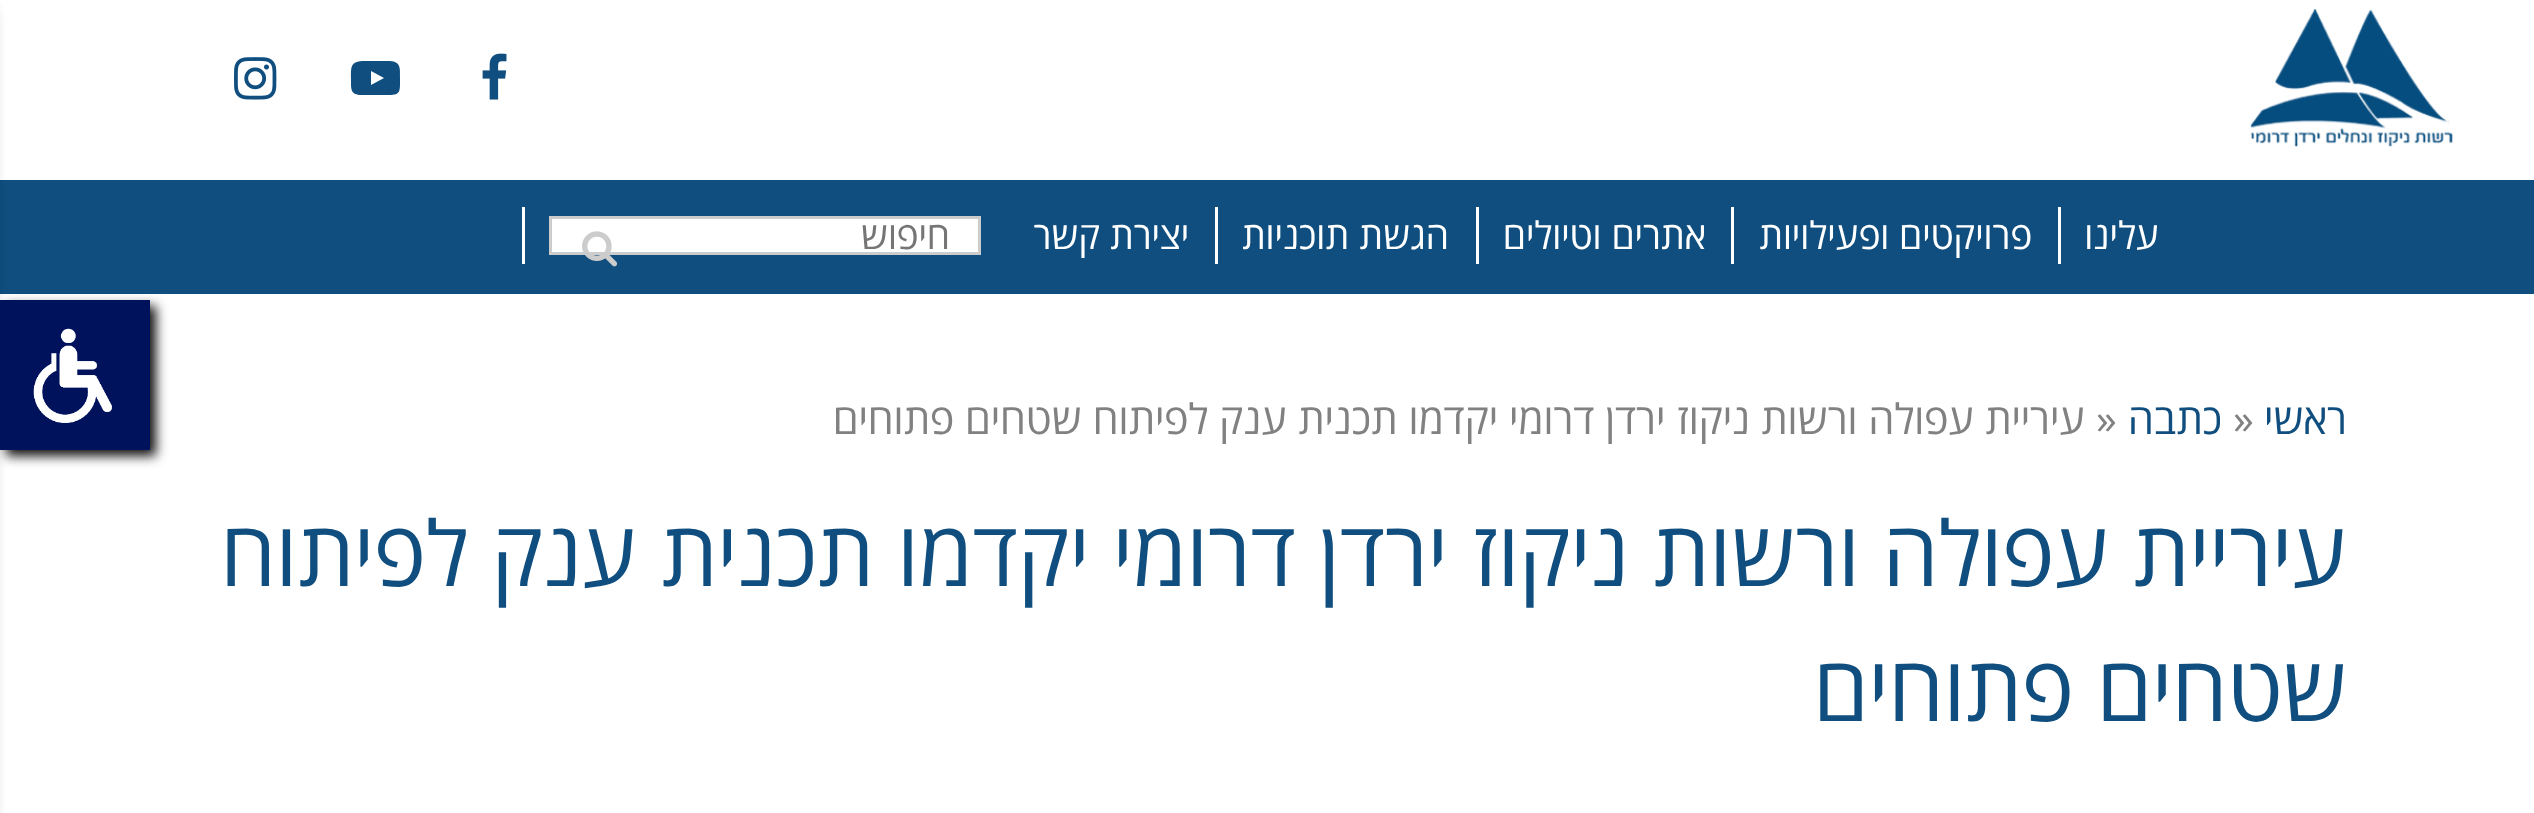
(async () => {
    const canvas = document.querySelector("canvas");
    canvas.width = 2534;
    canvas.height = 813;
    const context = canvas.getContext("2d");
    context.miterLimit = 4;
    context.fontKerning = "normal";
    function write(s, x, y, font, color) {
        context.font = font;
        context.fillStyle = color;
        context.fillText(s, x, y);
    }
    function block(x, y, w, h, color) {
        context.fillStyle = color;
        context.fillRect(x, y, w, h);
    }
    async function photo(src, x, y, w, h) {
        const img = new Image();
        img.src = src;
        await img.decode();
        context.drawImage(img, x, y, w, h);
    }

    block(0, 0, 2534, 813, "rgb(255, 255, 255)");
    await photo("media/1.png", 482, 53, 25, 47);
    context.fillStyle = "rgb(15, 78, 126)";
    context.beginPath();
    context.moveTo(371, 85);
    context.lineTo(384, 78);
    context.lineTo(371, 71);
    context.closePath();
    context.moveTo(376, 61);
    context.lineTo(390, 61);
    context.bezierCurveTo(401, 62, 400, 68, 400, 78);
    context.bezierCurveTo(400, 91, 401, 95, 389, 95);
    context.lineTo(362, 95);
    context.bezierCurveTo(350, 95, 351, 89, 351, 78);
    context.bezierCurveTo(351, 66, 351, 62, 362, 61);
    context.closePath();
    context.fill();
    await photo("media/2.png", 234, 57, 43, 43);
    block(0, 180, 2534, 114, "rgb(15, 78, 126)");
    await photo("media/3.png", 2250, 9, 203, 138);
    context.direction = "rtl";
    write("עלינו", 2159, 249, "37.75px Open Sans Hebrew", "rgb(255, 255, 255)");
    block(2058, 207, 3, 57, "rgb(255, 255, 255)");
    write("פרויקטים ופעילויות", 2032, 249, "37.75px Open Sans Hebrew", "rgb(255, 255, 255)");
    block(1731, 207, 3, 57, "rgb(255, 255, 255)");
    write("אתרים וטיולים", 1706, 249, "37.75px Open Sans Hebrew", "rgb(255, 255, 255)");
    block(1476, 207, 3, 57, "rgb(255, 255, 255)");
    write("הגשת תוכניות", 1449, 249, "37.75px Open Sans Hebrew", "rgb(255, 255, 255)");
    block(1215, 207, 3, 57, "rgb(255, 255, 255)");
    write("יצירת קשר", 1189, 249, "37.75px Open Sans Hebrew", "rgb(255, 255, 255)");
    context.beginPath();
    context.rect(550.5, 217.5, 429, 36);
    context.fill();
    context.strokeStyle = "rgb(204, 204, 204)";
    context.lineWidth = 3;
    context.stroke();
    write("חיפוש", 950, 249, "37.75px Open Sans Hebrew", "rgb(117, 117, 117)");
    await photo("media/4.png", 582, 231, 36, 36);
    block(522, 207, 3, 57, "rgb(255, 255, 255)");
    write("ראשי", 2347, 434, "42px Open Sans Hebrew", "rgb(15, 78, 126)");
    context.direction = "ltr";
    write("»", 2233, 434, "42px Open Sans Hebrew", "rgb(129, 129, 129)");
    context.direction = "rtl";
    write("כתבה", 2222, 434, "42px Open Sans Hebrew", "rgb(15, 78, 126)");
    context.direction = "ltr";
    write("»", 2096, 434, "42px Open Sans Hebrew", "rgb(129, 129, 129)");
    context.direction = "rtl";
    write("עיריית עפולה ורשות ניקוז ירדן דרומי יקדמו תכנית ענק לפיתוח שטחים פתוחים", 2085, 434, "42px Open Sans Hebrew", "rgb(129, 129, 129)");
    write("עיריית עפולה ורשות ניקוז ירדן דרומי יקדמו תכנית ענק לפיתוח", 2347, 586, "90px Open Sans Hebrew", "rgb(15, 78, 126)");
    write("שטחים פתוחים", 2347, 721, "90px Open Sans Hebrew", "rgb(15, 78, 126)");
    context.fillStyle = "rgb(17, 17, 17)";
    context.filter = "blur(7.5px)";
    context.beginPath();
    context.rect(-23, 9, 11, 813);
    context.fill();
    context.filter = "none";
    context.filter = "blur(6px)";
    context.beginPath();
    context.rect(6, 306, 150, 150);
    context.fill();
    context.filter = "none";
    await photo("media/5.png", 0, 300, 150, 150);
})();
